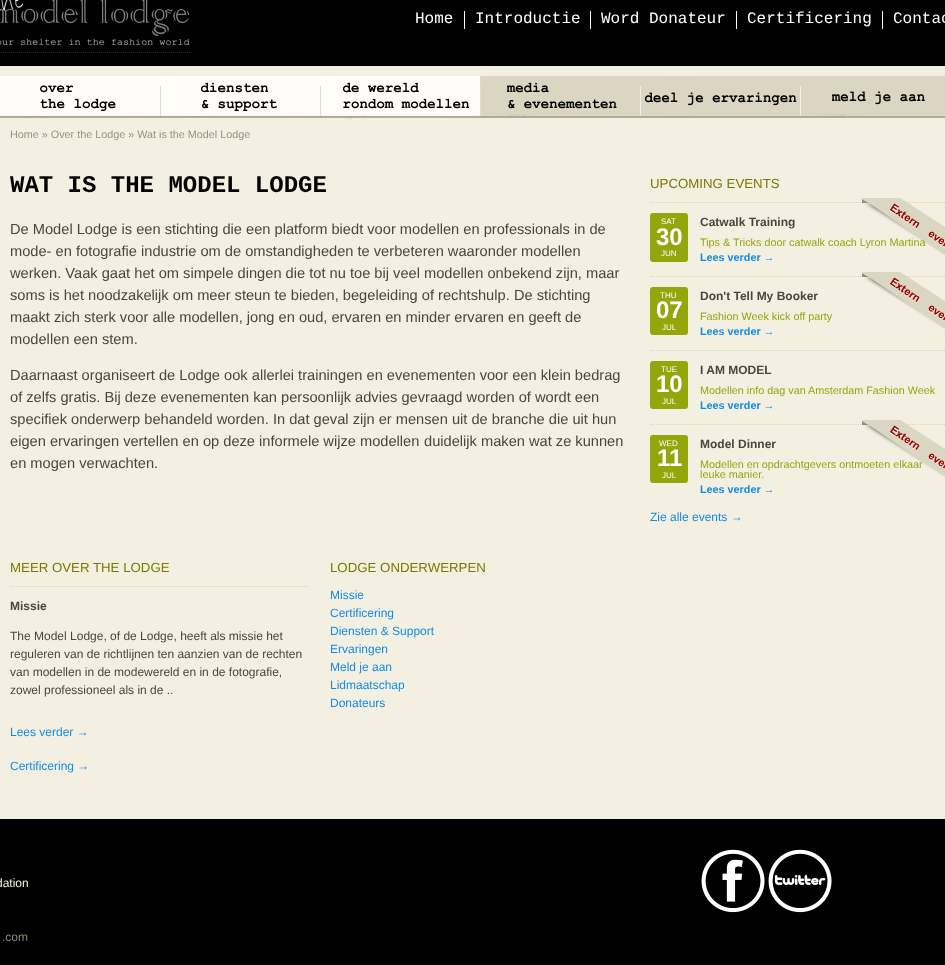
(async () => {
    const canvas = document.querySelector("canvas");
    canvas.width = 945;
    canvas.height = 965;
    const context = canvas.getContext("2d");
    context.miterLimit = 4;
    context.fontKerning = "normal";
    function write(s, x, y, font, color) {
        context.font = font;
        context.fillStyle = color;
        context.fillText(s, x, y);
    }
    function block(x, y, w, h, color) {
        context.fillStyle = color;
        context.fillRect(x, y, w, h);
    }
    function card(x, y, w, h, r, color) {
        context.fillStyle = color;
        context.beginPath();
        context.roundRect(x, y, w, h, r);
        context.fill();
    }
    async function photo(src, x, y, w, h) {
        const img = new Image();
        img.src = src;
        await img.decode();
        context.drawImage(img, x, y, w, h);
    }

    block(0, 0, 945, 965, "rgb(243, 240, 226)");
    block(0, 0, 945, 66, "rgb(0, 0, 0)");
    await photo("media/1.png", 0, 0, 189, 46);
    context.beginPath();
    context.moveTo(-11, 52.5);
    context.lineTo(193, 52.5);
    context.strokeStyle = "rgb(42, 41, 37)";
    context.setLineDash([1, 1]);
    context.stroke();
    block(464, 11, 1, 18, "rgb(255, 255, 255)");
    write("Home", 415, 23, "16px Liberation Mono", "rgb(255, 255, 255)");
    block(590, 11, 1, 18, "rgb(255, 255, 255)");
    write("Introductie", 475, 23, "16px Liberation Mono", "rgb(255, 255, 255)");
    block(736, 11, 1, 18, "rgb(255, 255, 255)");
    write("Word Donateur", 601, 23, "16px Liberation Mono", "rgb(255, 255, 255)");
    block(882, 11, 1, 18, "rgb(255, 255, 255)");
    write("Certificering", 747, 23, "16px Liberation Mono", "rgb(255, 255, 255)");
    write("Contac", 893, 23, "16px Liberation Mono", "rgb(255, 255, 255)");
    await photo("media/2.png", 0, 76, 160, 43);
    await photo("media/3.png", 160, 76, 160, 42);
    await photo("media/4.png", 320, 76, 160, 44);
    await photo("media/5.png", 480, 76, 160, 42);
    await photo("media/6.png", 640, 76, 160, 42);
    await photo("media/7.png", 800, 76, 145, 42);
    write("Home » Over the Lodge » Wat is the Model Lodge", 10, 138, "10.8px Liberation Sans", "rgb(156, 143, 126)");
    write("WAT IS THE MODEL LODGE", 10, 192, "bold 24px Liberation Mono", "rgb(1, 1, 1)");
    write("De Model Lodge is een stichting die een platform biedt voor modellen en professionals in de", 10, 234, "14.65px Liberation Sans", "rgb(73, 71, 56)");
    write("mode- en fotografie industrie om de omstandigheden te verbeteren waaronder modellen", 10, 256, "14.65px Liberation Sans", "rgb(73, 71, 56)");
    write("werken. Vaak gaat het om simpele dingen die tot nu toe bij veel modellen onbekend zijn, maar", 10, 278, "14.65px Liberation Sans", "rgb(73, 71, 56)");
    write("soms is het noodzakelijk om meer steun te bieden, begeleiding of rechtshulp.", 10, 300, "14.65px Liberation Sans", "rgb(73, 71, 56)");
    write("De stichting", 514, 300, "14.65px Liberation Sans", "rgb(73, 71, 56)");
    write("maakt zich sterk voor alle modellen, jong en oud, ervaren en minder ervaren en geeft de", 10, 322, "14.65px Liberation Sans", "rgb(73, 71, 56)");
    write("modellen een stem.", 10, 344, "14.65px Liberation Sans", "rgb(73, 71, 56)");
    write("Daarnaast organiseert de Lodge ook allerlei trainingen en evenementen voor een klein bedrag", 10, 380, "14.65px Liberation Sans", "rgb(73, 71, 56)");
    write("of zelfs gratis. Bij deze evenementen kan persoonlijk advies gevraagd worden of wordt een", 10, 402, "14.65px Liberation Sans", "rgb(73, 71, 56)");
    write("specifiek onderwerp behandeld worden. In dat geval zijn er mensen uit de branche die uit hun", 10, 424, "14.65px Liberation Sans", "rgb(73, 71, 56)");
    write("eigen ervaringen vertellen en op deze informele wijze modellen", 10, 446, "14.65px Liberation Sans", "rgb(73, 71, 56)");
    write("duidelijk maken wat ze kunnen", 424, 446, "14.65px Liberation Sans", "rgb(73, 71, 56)");
    write("en mogen verwachten.", 10, 468, "14.65px Liberation Sans", "rgb(73, 71, 56)");
    write("UPCOMING EVENTS", 650, 188, "13.25px Liberation Sans", "rgb(125, 119, 0)");
    context.beginPath();
    context.moveTo(650, 202.5);
    context.lineTo(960, 202.5);
    context.strokeStyle = "rgb(220, 212, 182)";
    context.stroke();
    card(650, 213, 38, 49, 3, "rgb(149, 166, 10)");
    write("SAT", 661, 224, "8px Liberation Sans", "rgb(255, 255, 255)");
    write("30", 656, 245, "bold 24px Liberation Sans", "rgb(255, 255, 255)");
    write("JUN", 661, 256, "8px Liberation Sans", "rgb(255, 255, 255)");
    write("Catwalk Training", 700, 226, "bold 12px Liberation Sans", "rgb(73, 71, 56)");
    write("Tips & Tricks door catwalk coach Lyron Martina", 700, 246, "10.8px Liberation Sans", "rgb(149, 166, 10)");
    await photo("media/8.png", 862, 198, 83, 57);
    write("Lees verder →", 700, 261, "bold 10.8px Liberation Sans", "rgb(18, 138, 230)");
    context.beginPath();
    context.moveTo(650, 276.5);
    context.lineTo(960, 276.5);
    context.stroke();
    card(650, 287, 38, 48, 3, "rgb(149, 166, 10)");
    write("THU", 660, 298, "8px Liberation Sans", "rgb(255, 255, 255)");
    write("07", 656, 318, "bold 24px Liberation Sans", "rgb(255, 255, 255)");
    write("JUL", 662, 330, "8px Liberation Sans", "rgb(255, 255, 255)");
    write("Don't Tell My Booker", 700, 300, "bold 12px Liberation Sans", "rgb(73, 71, 56)");
    await photo("media/9.png", 862, 272, 83, 57);
    write("Fashion Week kick off party", 700, 320, "10.8px Liberation Sans", "rgb(149, 166, 10)");
    write("Lees verder →", 700, 335, "bold 10.8px Liberation Sans", "rgb(18, 138, 230)");
    context.beginPath();
    context.moveTo(650, 350.5);
    context.lineTo(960, 350.5);
    context.stroke();
    card(650, 361, 38, 48, 3, "rgb(149, 166, 10)");
    write("TUE", 661, 372, "8px Liberation Sans", "rgb(255, 255, 255)");
    write("10", 656, 392, "bold 24px Liberation Sans", "rgb(255, 255, 255)");
    write("JUL", 662, 404, "8px Liberation Sans", "rgb(255, 255, 255)");
    write("I AM MODEL", 700, 374, "bold 12px Liberation Sans", "rgb(73, 71, 56)");
    write("Modellen info dag van Amsterdam Fashion Week", 700, 394, "10.8px Liberation Sans", "rgb(149, 166, 10)");
    write("Lees verder →", 700, 409, "bold 10.8px Liberation Sans", "rgb(18, 138, 230)");
    context.beginPath();
    context.moveTo(650, 424.5);
    context.lineTo(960, 424.5);
    context.stroke();
    card(650, 435, 38, 48, 3, "rgb(149, 166, 10)");
    write("WED", 659, 446, "8px Liberation Sans", "rgb(255, 255, 255)");
    write("11", 657, 466, "bold 24px Liberation Sans", "rgb(255, 255, 255)");
    write("JUL", 662, 478, "8px Liberation Sans", "rgb(255, 255, 255)");
    write("Model Dinner", 700, 448, "bold 12px Liberation Sans", "rgb(73, 71, 56)");
    write("Modellen en opdrachtgevers ontmoeten elkaar", 700, 468, "10.8px Liberation Sans", "rgb(149, 166, 10)");
    await photo("media/10.png", 862, 420, 83, 57);
    write("leuke manier.", 700, 478, "10.8px Liberation Sans", "rgb(149, 166, 10)");
    write("Lees verder →", 700, 493, "bold 10.8px Liberation Sans", "rgb(18, 138, 230)");
    write("Zie alle events →", 650, 521, "12px Liberation Sans", "rgb(18, 138, 230)");
    write("MEER OVER THE LODGE", 10, 572, "13.25px Liberation Sans", "rgb(125, 119, 0)");
    context.beginPath();
    context.moveTo(10, 586.5);
    context.lineTo(310, 586.5);
    context.stroke();
    write("Missie", 10, 610, "bold 12px Liberation Sans", "rgb(73, 71, 56)");
    write("The Model Lodge, of de Lodge, heeft als missie het", 10, 640, "12px Liberation Sans", "rgb(73, 71, 56)");
    write("reguleren van de richtlijnen ten aanzien van de rechten", 10, 658, "12px Liberation Sans", "rgb(73, 71, 56)");
    write("van modellen in de modewereld en in de fotografie,", 10, 676, "12px Liberation Sans", "rgb(73, 71, 56)");
    write("zowel professioneel als in de ..", 10, 694, "12px Liberation Sans", "rgb(73, 71, 56)");
    write("Lees verder →", 10, 736, "12px Liberation Sans", "rgb(18, 138, 230)");
    write("Certificering →", 10, 770, "12px Liberation Sans", "rgb(18, 138, 230)");
    write("LODGE ONDERWERPEN", 330, 572, "13.25px Liberation Sans", "rgb(125, 119, 0)");
    write("Missie", 330, 599, "12px Liberation Sans", "rgb(18, 138, 230)");
    write("Certificering", 330, 617, "12px Liberation Sans", "rgb(18, 138, 230)");
    write("Diensten & Support", 330, 635, "12px Liberation Sans", "rgb(18, 138, 230)");
    write("Ervaringen", 330, 653, "12px Liberation Sans", "rgb(18, 138, 230)");
    write("Meld je aan", 330, 671, "12px Liberation Sans", "rgb(18, 138, 230)");
    write("Lidmaatschap", 330, 689, "12px Liberation Sans", "rgb(18, 138, 230)");
    write("Donateurs", 330, 707, "12px Liberation Sans", "rgb(18, 138, 230)");
    block(0, 819, 945, 146, "rgb(0, 0, 0)");
    write("dation", -4, 887, "12px Liberation Sans", "rgb(243, 240, 226)");
    write(".com", 2, 941, "12px Liberation Sans", "rgb(141, 136, 111)");
    await photo("media/11.png", 701, 849, 64, 64);
    await photo("media/12.png", 768, 849, 64, 64);
})();
